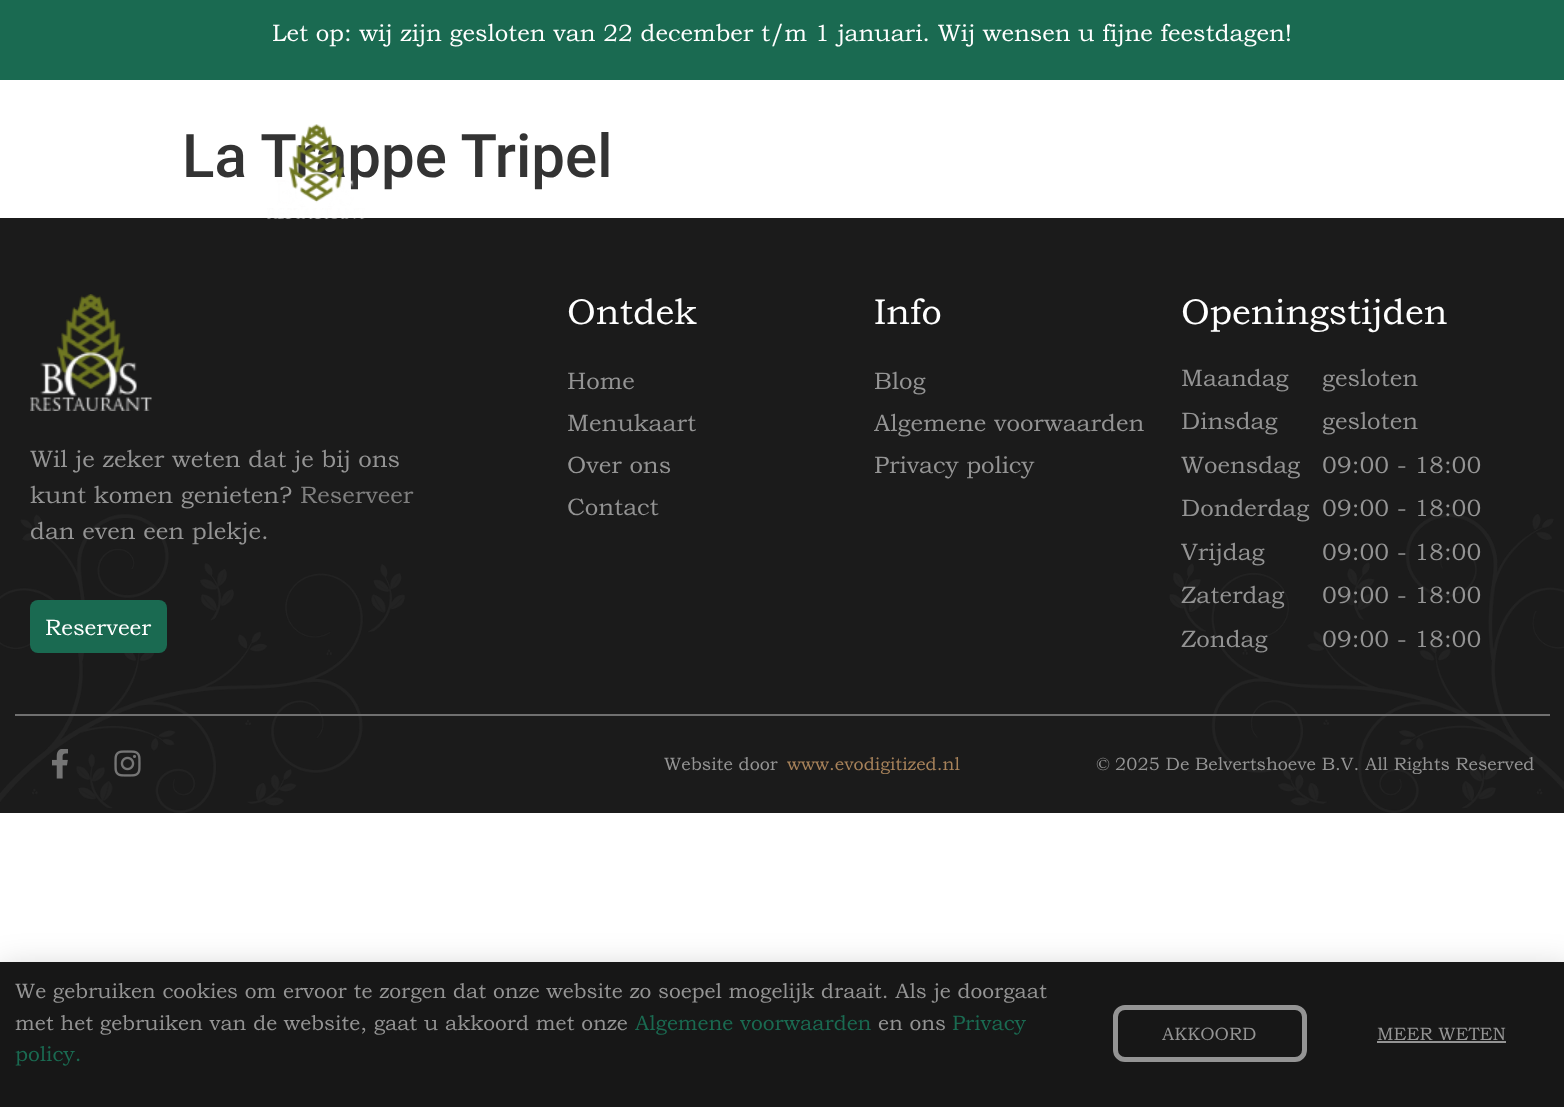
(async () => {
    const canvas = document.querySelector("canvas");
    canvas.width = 1564;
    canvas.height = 1107;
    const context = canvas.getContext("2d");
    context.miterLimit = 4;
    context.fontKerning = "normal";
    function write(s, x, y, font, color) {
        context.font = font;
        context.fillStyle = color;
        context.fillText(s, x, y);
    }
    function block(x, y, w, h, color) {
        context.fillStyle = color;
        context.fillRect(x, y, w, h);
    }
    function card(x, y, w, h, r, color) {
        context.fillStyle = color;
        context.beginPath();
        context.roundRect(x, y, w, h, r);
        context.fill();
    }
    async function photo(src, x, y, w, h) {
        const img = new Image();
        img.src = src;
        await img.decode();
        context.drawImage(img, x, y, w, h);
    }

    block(0, 0, 1564, 1107, "rgb(255, 255, 255)");
    block(0, 0, 1564, 80, "rgb(26, 106, 81)");
    write("Let op: wij zijn gesloten van 22 december t/m 1 januari. Wij wensen u fijne feestdagen!", 272, 41, "24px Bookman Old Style", "rgb(255, 255, 255)");
    write("La Trappe Tripel", 182, 177, "500 60px Roboto", "rgb(51, 51, 51)");
    block(0, 218, 1564, 595, "rgb(27, 27, 27)");
    await photo("media/1.png", 267, 124, 98, 95);
    await photo("media/2.png", 30, 294, 122, 117);
    write("Wil je zeker weten dat je bij ons", 30, 467, "24px Bookman Old Style", "rgb(148, 148, 148)");
    write("kunt komen genieten?", 30, 503, "24px Bookman Old Style", "rgb(148, 148, 148)");
    write("Reserveer", 300, 503, "24px Bookman Old Style", "rgb(128, 128, 128)");
    await photo("media/5.png", 0, 513, 1564, 300);
    write("dan even een plekje.", 30, 539, "24px Bookman Old Style", "rgb(148, 148, 148)");
    card(30, 600, 137, 53, 8, "rgb(26, 106, 81)");
    write("Reserveer", 45, 635, "22.5px Bookman Old Style", "rgb(255, 255, 255)");
    write("Ontdek", 567, 324, "36px Bookman Old Style", "rgb(255, 255, 255)");
    write("Home", 567, 389, "24px Bookman Old Style", "rgb(148, 148, 148)");
    write("Menukaart", 567, 431, "24px Bookman Old Style", "rgb(148, 148, 148)");
    write("Over ons", 567, 473, "24px Bookman Old Style", "rgb(148, 148, 148)");
    write("Contact", 567, 515, "24px Bookman Old Style", "rgb(148, 148, 148)");
    write("Info", 874, 324, "36px Bookman Old Style", "rgb(255, 255, 255)");
    write("Blog", 874, 389, "24px Bookman Old Style", "rgb(148, 148, 148)");
    write("Algemene voorwaarden", 874, 431, "24px Bookman Old Style", "rgb(148, 148, 148)");
    write("Privacy policy", 874, 473, "24px Bookman Old Style", "rgb(148, 148, 148)");
    write("Openingstijden", 1181, 324, "36px Bookman Old Style", "rgb(255, 255, 255)");
    write("Maandag", 1181, 386, "24px Bookman Old Style", "rgb(148, 148, 148)");
    write("Dinsdag", 1181, 429, "24px Bookman Old Style", "rgb(148, 148, 148)");
    write("Woensdag", 1181, 473, "24px Bookman Old Style", "rgb(148, 148, 148)");
    write("Donderdag", 1181, 516, "24px Bookman Old Style", "rgb(148, 148, 148)");
    write("Vrijdag", 1181, 560, "24px Bookman Old Style", "rgb(148, 148, 148)");
    write("Zaterdag", 1181, 603, "24px Bookman Old Style", "rgb(148, 148, 148)");
    write("Zondag", 1181, 647, "24px Bookman Old Style", "rgb(148, 148, 148)");
    write("gesloten", 1322, 386, "24px Bookman Old Style", "rgb(148, 148, 148)");
    write("gesloten", 1322, 429, "24px Bookman Old Style", "rgb(148, 148, 148)");
    write("09:00 - 18:00", 1322, 473, "24px Bookman Old Style", "rgb(148, 148, 148)");
    write("09:00 - 18:00", 1322, 516, "24px Bookman Old Style", "rgb(148, 148, 148)");
    write("09:00 - 18:00", 1322, 560, "24px Bookman Old Style", "rgb(148, 148, 148)");
    write("09:00 - 18:00", 1322, 603, "24px Bookman Old Style", "rgb(148, 148, 148)");
    write("09:00 - 18:00", 1322, 647, "24px Bookman Old Style", "rgb(148, 148, 148)");
    block(15, 714, 1535, 2, "rgb(112, 112, 112)");
    await photo("media/3.png", 52, 749, 16, 30);
    await photo("media/4.png", 114, 750, 27, 27);
    write("Website door", 664, 770, "18px Bookman Old Style", "rgb(148, 148, 148)");
    write("www.evodigitized.nl", 787, 770, "18px Bookman Old Style", "rgb(167, 130, 90)");
    write("© 2025 De Belvertshoeve B.V. All Rights Reserved", 1096, 770, "18px Bookman Old Style", "rgb(148, 148, 148)");
    context.fillStyle = "rgba(0, 0, 0, 0.2)";
    context.filter = "blur(17px)";
    context.beginPath();
    context.rect(-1, 969, 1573, 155);
    context.fill();
    context.filter = "none";
    block(0, 962, 1564, 145, "rgb(23, 23, 23)");
    write("We gebruiken cookies om ervoor te zorgen dat onze website zo soepel mogelijk draait. Als je doorgaat", 15, 998, "21px Bookman Old Style", "rgb(148, 148, 148)");
    write("met het gebruiken van de website, gaat u akkoord met onze", 15, 1030, "21px Bookman Old Style", "rgb(148, 148, 148)");
    write("Algemene voorwaarden", 635, 1030, "21px Bookman Old Style", "rgb(26, 106, 81)");
    write("en ons", 878, 1030, "21px Bookman Old Style", "rgb(148, 148, 148)");
    write("Privacy", 952, 1030, "21px Bookman Old Style", "rgb(26, 106, 81)");
    write("policy.", 15, 1061, "21px Bookman Old Style", "rgb(26, 106, 81)");
    context.beginPath();
    context.roundRect(1115.5, 1007.5, 189, 52, 9.5);
    context.strokeStyle = "rgb(148, 148, 148)";
    context.lineWidth = 5;
    context.stroke();
    write("AKKOORD", 1162, 1040, "18px Bookman Old Style", "rgb(148, 148, 148)");
    write("MEER WETEN", 1377, 1040, "18px Bookman Old Style", "rgb(148, 148, 148)");
    block(1377, 1041, 129, 2, "rgb(148, 148, 148)");
})();
